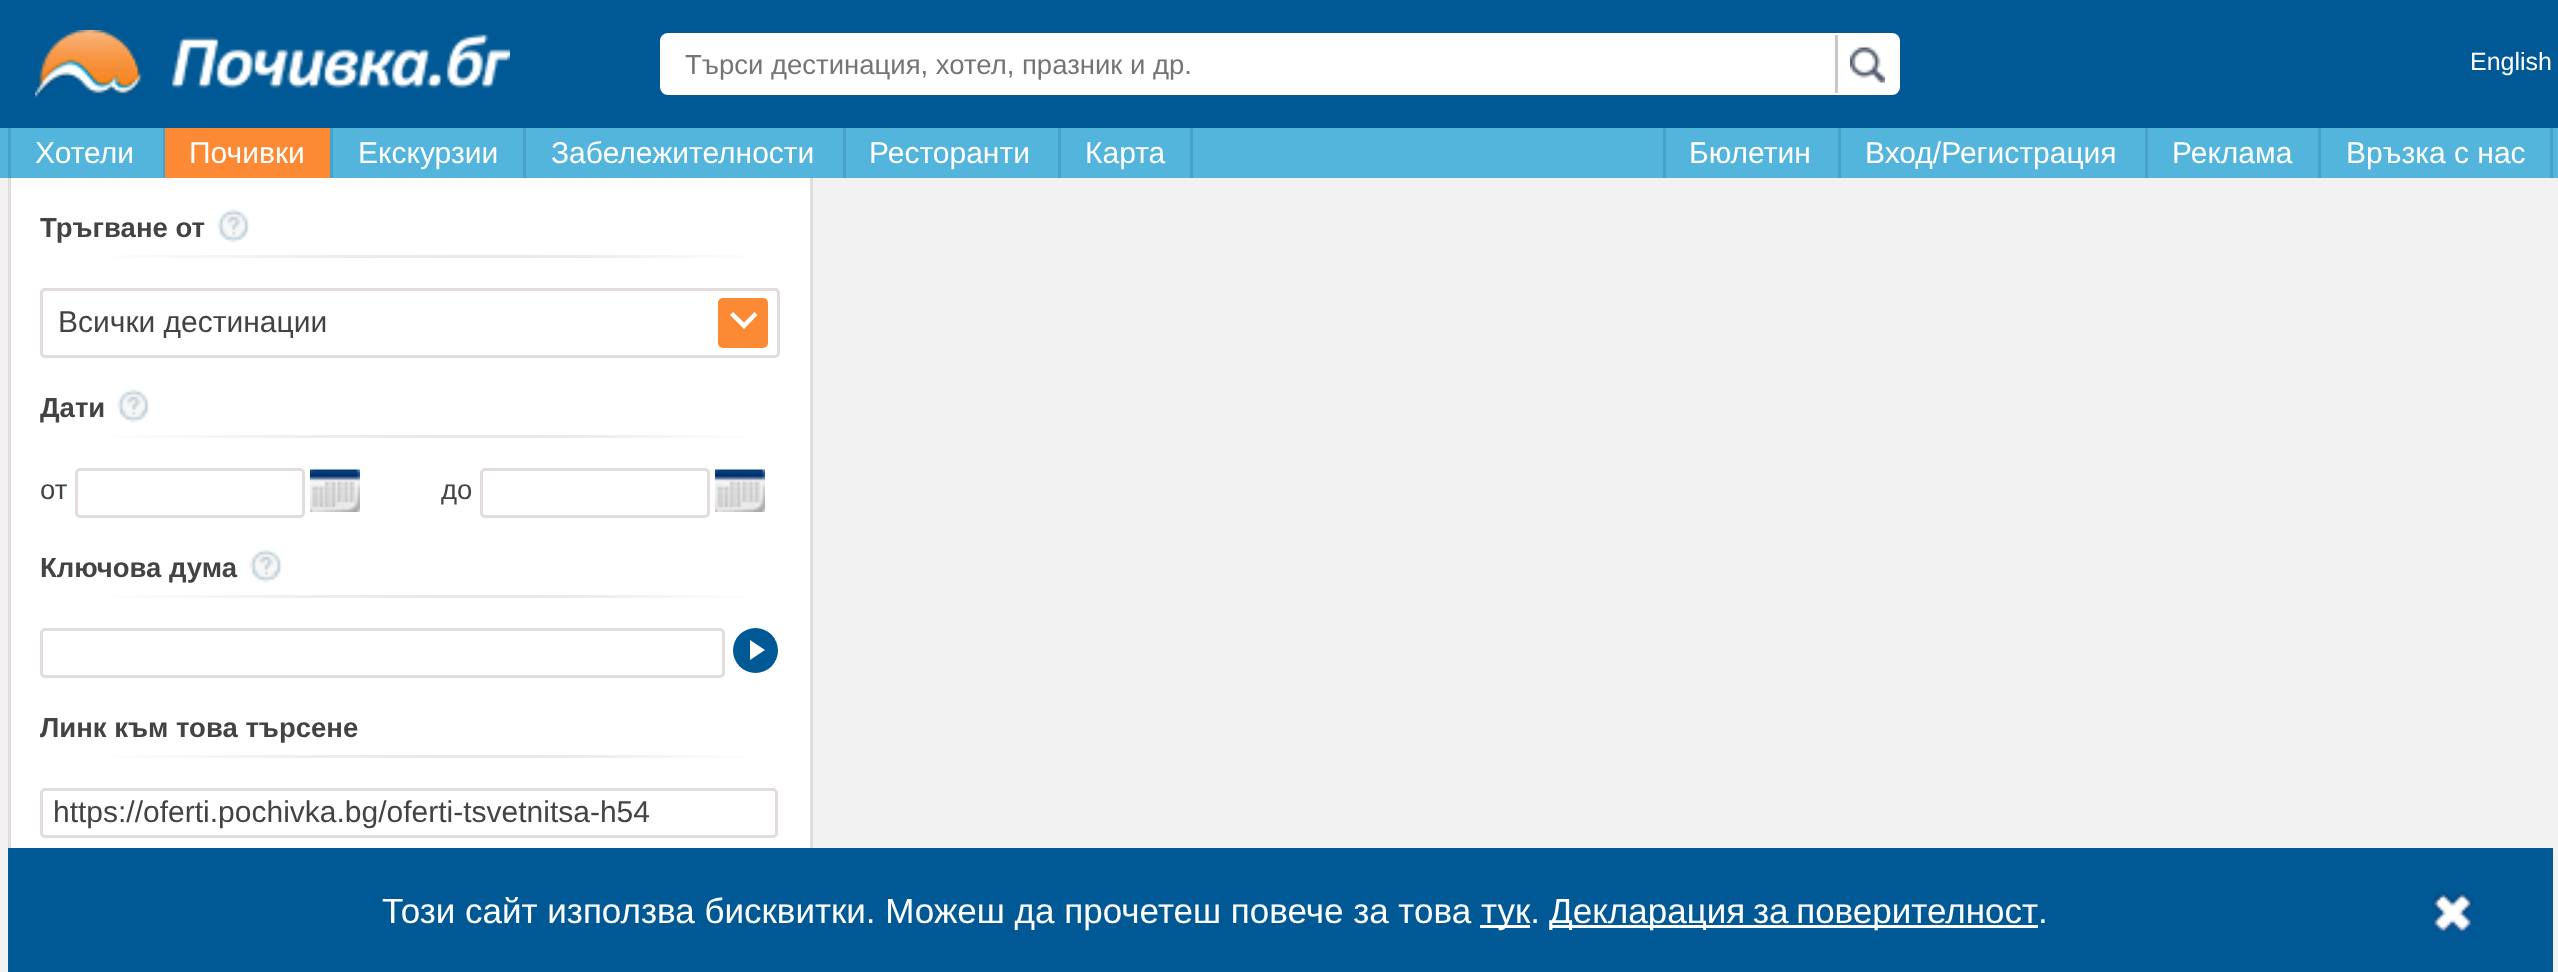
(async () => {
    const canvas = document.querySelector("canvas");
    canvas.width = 2558;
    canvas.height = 972;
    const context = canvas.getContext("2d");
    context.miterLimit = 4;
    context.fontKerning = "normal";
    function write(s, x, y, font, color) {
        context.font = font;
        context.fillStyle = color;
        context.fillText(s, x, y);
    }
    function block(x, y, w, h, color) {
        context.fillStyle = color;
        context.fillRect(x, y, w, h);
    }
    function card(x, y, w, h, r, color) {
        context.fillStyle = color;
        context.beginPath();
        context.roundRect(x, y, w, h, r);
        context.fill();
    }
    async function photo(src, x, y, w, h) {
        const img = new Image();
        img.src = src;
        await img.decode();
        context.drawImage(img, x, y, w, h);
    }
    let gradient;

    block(0, 0, 2558, 972, "rgb(242, 242, 242)");
    block(0, 0, 2558, 128, "rgb(0, 89, 148)");
    block(0, 128, 2558, 50, "rgb(83, 180, 220)");
    await photo("media/1.png", 35, 30, 475, 68);
    card(660, 33, 1240, 62, 8, "rgb(255, 255, 255)");
    await photo("media/2.png", 1850, 47, 35, 36);
    block(1835, 35, 3, 58, "rgb(199, 199, 199)");
    write("Търси дестинация, хотел, празник и др.", 685, 74, "27.5px Liberation Sans", "rgb(117, 117, 117)");
    write("English", 2470, 70, "25px Liberation Sans", "rgb(255, 255, 255)");
    block(163, 128, 2, 50, "rgb(71, 162, 199)");
    block(8, 128, 3, 50, "rgb(71, 162, 199)");
    write("Хотели", 35, 163, "30px Liberation Sans", "rgb(255, 255, 255)");
    block(165, 128, 165, 50, "rgb(252, 138, 52)");
    block(330, 128, 3, 50, "rgb(71, 162, 199)");
    write("Почивки", 189, 163, "30px Liberation Sans", "rgb(255, 255, 255)");
    block(523, 128, 3, 50, "rgb(71, 162, 199)");
    write("Екскурзии", 358, 163, "30px Liberation Sans", "rgb(255, 255, 255)");
    block(843, 128, 3, 50, "rgb(71, 162, 199)");
    write("Забележителности", 551, 163, "30px Liberation Sans", "rgb(255, 255, 255)");
    block(1058, 128, 3, 50, "rgb(71, 162, 199)");
    write("Ресторанти", 869, 163, "30px Liberation Sans", "rgb(255, 255, 255)");
    block(1190, 128, 3, 50, "rgb(71, 162, 199)");
    write("Карта", 1085, 163, "30px Liberation Sans", "rgb(255, 255, 255)");
    block(1838, 128, 3, 50, "rgb(71, 162, 199)");
    block(1663, 128, 3, 50, "rgb(71, 162, 199)");
    write("Бюлетин", 1689, 163, "30px Liberation Sans", "rgb(255, 255, 255)");
    block(2145, 128, 3, 50, "rgb(71, 162, 199)");
    write("Вход/Регистрация", 1865, 163, "30px Liberation Sans", "rgb(255, 255, 255)");
    block(2318, 128, 3, 50, "rgb(71, 162, 199)");
    write("Реклама", 2172, 163, "30px Liberation Sans", "rgb(255, 255, 255)");
    block(2550, 128, 3, 50, "rgb(71, 162, 199)");
    write("Връзка с нас", 2346, 163, "30px Liberation Sans", "rgb(255, 255, 255)");
    block(11, 178, 799, 670, "rgb(255, 255, 255)");
    block(810, 178, 3, 670, "rgb(226, 220, 220)");
    block(8, 178, 3, 670, "rgb(226, 220, 220)");
    write("Тръгване от", 40, 237, "bold 27.5px Liberation Sans", "rgb(66, 67, 69)");
    await photo("media/3.png", 217, 209, 33, 34);
    gradient = context.createLinearGradient(40, 256, 780, 256);
    gradient.addColorStop(0, "rgb(255, 255, 255)");
    gradient.addColorStop(0.09, "rgb(253, 253, 253)");
    gradient.addColorStop(0.4, "rgb(237, 237, 237)");
    gradient.addColorStop(0.56, "rgb(232, 232, 232)");
    gradient.addColorStop(0.65, "rgb(232, 232, 232)");
    gradient.addColorStop(0.72, "rgb(235, 235, 235)");
    gradient.addColorStop(0.89, "rgb(249, 249, 249)");
    gradient.addColorStop(1, "rgb(255, 255, 255)");
    context.fillStyle = gradient;
    context.fillRect(114, 255, 632, 3);
    card(718, 298, 50, 50, 5, "rgb(252, 138, 52)");
    context.fillStyle = "rgb(255, 255, 255)";
    context.beginPath();
    context.moveTo(733, 312);
    context.lineTo(730, 315);
    context.lineTo(744, 329);
    context.lineTo(757.5, 315);
    context.lineTo(754.5, 312);
    context.lineTo(744, 322.5);
    context.closePath();
    context.fill();
    context.beginPath();
    context.roundRect(41.5, 289.5, 737, 67, 3.5);
    context.strokeStyle = "rgb(226, 220, 220)";
    context.lineWidth = 3;
    context.stroke();
    write("Всички дестинации", 58, 332, "30px Liberation Sans", "rgb(66, 67, 69)");
    write("Дати", 40, 417, "bold 27.5px Liberation Sans", "rgb(66, 67, 69)");
    await photo("media/4.png", 117, 389, 33, 34);
    gradient = context.createLinearGradient(40, 436, 780, 436);
    gradient.addColorStop(0, "rgb(255, 255, 255)");
    gradient.addColorStop(0.09, "rgb(253, 253, 253)");
    gradient.addColorStop(0.4, "rgb(237, 237, 237)");
    gradient.addColorStop(0.56, "rgb(232, 232, 232)");
    gradient.addColorStop(0.65, "rgb(232, 232, 232)");
    gradient.addColorStop(0.72, "rgb(235, 235, 235)");
    gradient.addColorStop(0.89, "rgb(249, 249, 249)");
    gradient.addColorStop(1, "rgb(255, 255, 255)");
    context.fillStyle = gradient;
    context.fillRect(114, 435, 632, 3);
    write("от", 40, 499, "27.5px Liberation Sans", "rgb(66, 67, 69)");
    context.beginPath();
    context.roundRect(76.5, 469.5, 227, 47, 3.5);
    context.stroke();
    await photo("media/5.png", 310, 469, 50, 43);
    write("до", 441, 499, "27.5px Liberation Sans", "rgb(66, 67, 69)");
    context.beginPath();
    context.roundRect(481.5, 469.5, 227, 47, 3.5);
    context.stroke();
    await photo("media/6.png", 715, 469, 50, 43);
    write("Ключова дума", 40, 577, "bold 27.5px Liberation Sans", "rgb(66, 67, 69)");
    await photo("media/7.png", 249, 549, 33, 34);
    gradient = context.createLinearGradient(40, 596, 780, 596);
    gradient.addColorStop(0, "rgb(255, 255, 255)");
    gradient.addColorStop(0.09, "rgb(253, 253, 253)");
    gradient.addColorStop(0.4, "rgb(237, 237, 237)");
    gradient.addColorStop(0.56, "rgb(232, 232, 232)");
    gradient.addColorStop(0.65, "rgb(232, 232, 232)");
    gradient.addColorStop(0.72, "rgb(235, 235, 235)");
    gradient.addColorStop(0.89, "rgb(249, 249, 249)");
    gradient.addColorStop(1, "rgb(255, 255, 255)");
    context.fillStyle = gradient;
    context.fillRect(114, 595, 632, 3);
    context.beginPath();
    context.roundRect(41.5, 629.5, 682, 47, 3.5);
    context.stroke();
    context.fillStyle = "rgb(0, 89, 148)";
    context.beginPath();
    context.arc(755.5, 650.5, 22.5, 0, Math.PI * 2);
    context.fill();
    context.fillStyle = "rgb(255, 255, 255)";
    context.beginPath();
    context.moveTo(750, 660);
    context.lineTo(750, 640);
    context.lineTo(765, 650);
    context.closePath();
    context.fill();
    write("Линк към това търсене", 40, 737, "bold 27.5px Liberation Sans", "rgb(66, 67, 69)");
    gradient = context.createLinearGradient(40, 756, 780, 756);
    gradient.addColorStop(0, "rgb(255, 255, 255)");
    gradient.addColorStop(0.09, "rgb(253, 253, 253)");
    gradient.addColorStop(0.4, "rgb(237, 237, 237)");
    gradient.addColorStop(0.56, "rgb(232, 232, 232)");
    gradient.addColorStop(0.65, "rgb(232, 232, 232)");
    gradient.addColorStop(0.72, "rgb(235, 235, 235)");
    gradient.addColorStop(0.89, "rgb(249, 249, 249)");
    gradient.addColorStop(1, "rgb(255, 255, 255)");
    context.fillStyle = gradient;
    context.fillRect(114, 755, 632, 3);
    context.beginPath();
    context.roundRect(41.5, 789.5, 735, 47, 3.5);
    context.stroke();
    write("https://oferti.pochivka.bg/oferti-tsvetnitsa-h54", 53, 822, "30px Liberation Sans", "rgb(66, 67, 69)");
    block(8, 848, 2545, 124, "rgb(0, 89, 148)");
    write("Този сайт използва бисквитки. Можеш да прочетеш повече за това", 382, 923, "35px Liberation Sans", "rgb(255, 255, 255)");
    block(1480, 925, 50, 3, "rgb(255, 255, 255)");
    write("тук.", 1481, 923, "35px Liberation Sans", "rgb(255, 255, 255)");
    block(1550, 925, 488, 3, "rgb(255, 255, 255)");
    context.wordSpacing = "-2px";
    write("Декларация за поверителност", 1549, 923, "35px Liberation Sans", "rgb(255, 255, 255)");
    context.wordSpacing = "0px";
    write(".", 2038, 923, "35px Liberation Sans", "rgb(255, 255, 255)");
    await photo("media/8.png", 2432, 892, 41, 41);
})();
